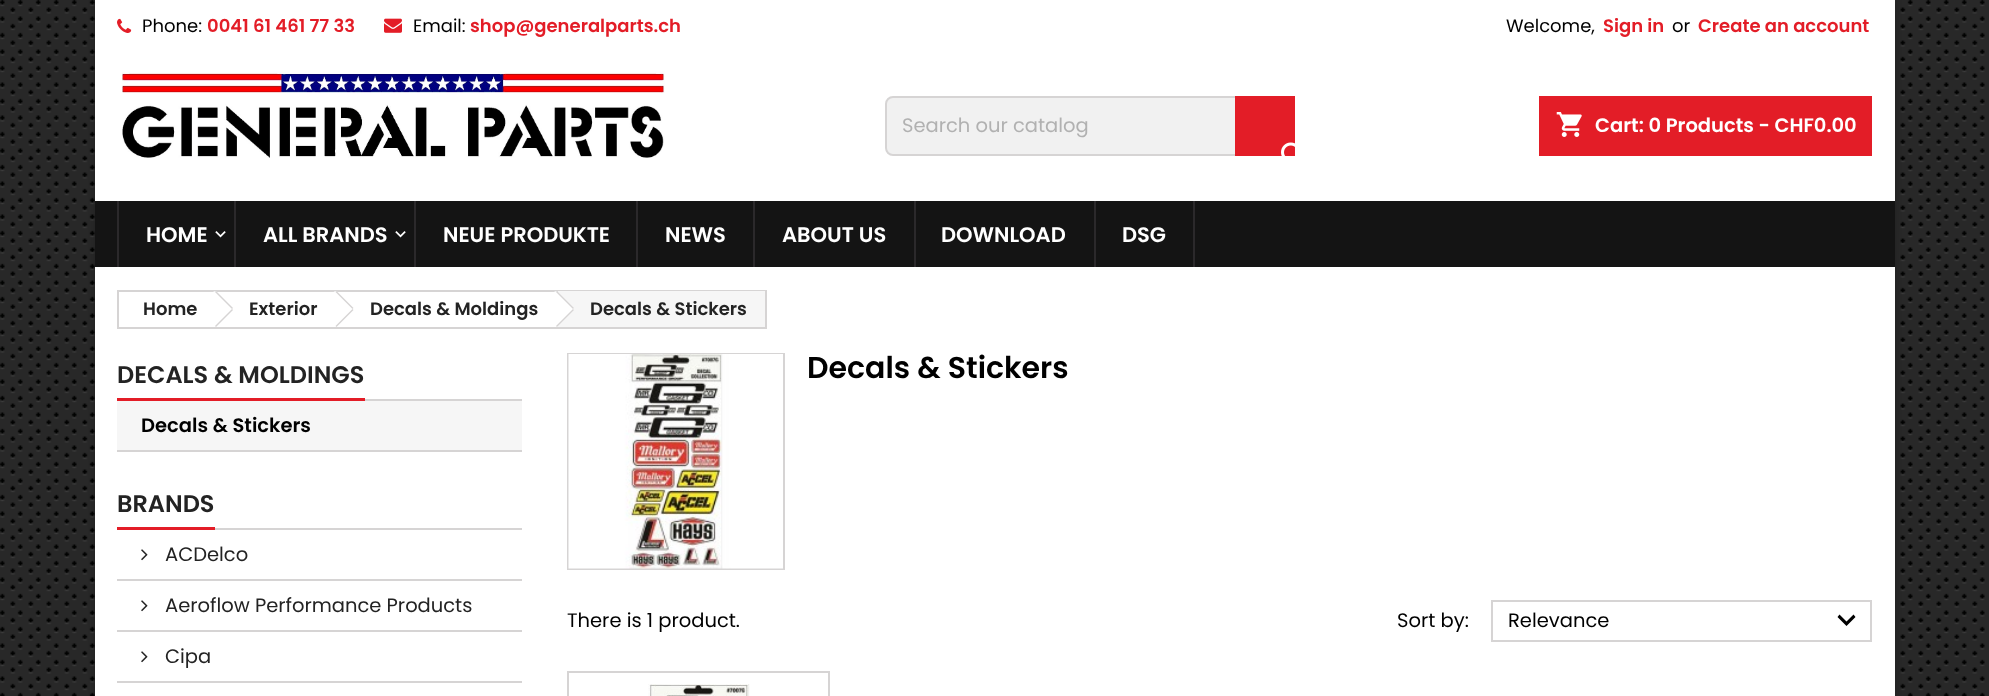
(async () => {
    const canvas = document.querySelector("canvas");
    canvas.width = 1989;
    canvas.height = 696;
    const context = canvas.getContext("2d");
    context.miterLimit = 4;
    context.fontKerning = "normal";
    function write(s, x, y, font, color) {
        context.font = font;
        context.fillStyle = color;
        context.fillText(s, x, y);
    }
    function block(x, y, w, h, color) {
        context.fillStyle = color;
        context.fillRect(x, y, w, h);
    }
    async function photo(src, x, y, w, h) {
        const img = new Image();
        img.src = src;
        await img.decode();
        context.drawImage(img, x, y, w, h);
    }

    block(0, 0, 1989, 696, "rgb(255, 255, 255)");
    await photo("media/1.png", 0, 0, 1989, 696);
    context.fillStyle = "rgba(0, 0, 0, 0.2)";
    context.filter = "blur(3px)";
    context.beginPath();
    context.rect(95, 0, 1800, 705);
    context.fill();
    context.filter = "none";
    block(95, 0, 1800, 696, "rgb(255, 255, 255)");
    await photo("media/2.png", 117, 18, 15, 15);
    write("Phone:", 142, 32, "18px Poppins", "rgb(0, 0, 0)");
    write("0041 61 461 77 33", 207, 32, "600 18px Poppins", "rgb(227, 29, 39)");
    await photo("media/3.png", 384, 18, 18, 15);
    write("Email:", 413, 32, "18px Poppins", "rgb(0, 0, 0)");
    write("shop@generalparts.ch", 470, 32, "600 18px Poppins", "rgb(227, 29, 39)");
    write("Welcome,", 1506, 32, "18px Poppins", "rgb(0, 0, 0)");
    write("Sign in", 1603, 32, "600 18px Poppins", "rgb(227, 29, 39)");
    write("or", 1672, 32, "18px Poppins", "rgb(0, 0, 0)");
    write("Create an account", 1698, 32, "600 18px Poppins", "rgb(227, 29, 39)");
    await photo("media/4.png", 122, 71, 543, 87);
    context.fillStyle = "rgb(241, 241, 241)";
    context.beginPath();
    context.roundRect(886, 97, 408, 58, 7);
    context.fill();
    context.strokeStyle = "rgb(214, 212, 212)";
    context.lineWidth = 2;
    context.stroke();
    write("Search our catalog", 902, 132, "19.5px Poppins", "rgb(177, 177, 177)");
    block(1235, 96, 60, 60, "rgb(227, 29, 39)");
    await photo("media/5.png", 1281, 142, 14, 14);
    block(1539, 96, 333, 60, "rgb(227, 29, 39)");
    await photo("media/6.png", 1556, 112, 26, 25);
    write("Cart: 0 Products - CHF0.00", 1595, 132, "600 19.5px Poppins", "rgb(255, 255, 255)");
    block(95, 201, 1800, 66, "rgb(20, 20, 20)");
    block(234, 201, 2, 66, "rgb(43, 41, 43)");
    block(117, 201, 2, 66, "rgb(43, 41, 43)");
    write("HOME", 146, 242, "600 21px Poppins", "rgb(255, 255, 255)");
    await photo("media/7.png", 215, 231, 11, 7);
    block(414, 201, 2, 66, "rgb(43, 41, 43)");
    write("ALL BRANDS", 263, 242, "600 21px Poppins", "rgb(255, 255, 255)");
    await photo("media/7.png", 395, 231, 11, 7);
    block(636, 201, 2, 66, "rgb(43, 41, 43)");
    write("NEUE PRODUKTE", 443, 242, "600 21px Poppins", "rgb(255, 255, 255)");
    block(753, 201, 2, 66, "rgb(43, 41, 43)");
    write("NEWS", 665, 242, "600 21px Poppins", "rgb(255, 255, 255)");
    block(914, 201, 2, 66, "rgb(43, 41, 43)");
    write("ABOUT US", 782, 242, "600 21px Poppins", "rgb(255, 255, 255)");
    block(1094, 201, 2, 66, "rgb(43, 41, 43)");
    write("DOWNLOAD", 941, 242, "600 21px Poppins", "rgb(255, 255, 255)");
    block(1193, 201, 2, 66, "rgb(43, 41, 43)");
    write("DSG", 1122, 242, "600 21px Poppins", "rgb(255, 255, 255)");
    context.strokeRect(118, 291, 648, 37);
    write("Home", 143, 315, "600 18px Poppins", "rgb(35, 35, 35)");
    context.fillStyle = "rgb(255, 255, 255)";
    context.beginPath();
    context.moveTo(217, 292);
    context.lineTo(232, 307);
    context.bezierCurveTo(233, 308, 233, 310, 232, 311);
    context.lineTo(217, 326);
    context.bezierCurveTo(216, 327, 214, 327, 213, 326);
    context.lineTo(198, 311);
    context.bezierCurveTo(196.5, 310, 196.5, 308, 198, 307);
    context.lineTo(213, 292);
    context.bezierCurveTo(214, 291, 216, 291, 217, 292);
    context.closePath();
    context.fill();
    context.fillStyle = "rgb(214, 212, 212)";
    context.beginPath();
    context.moveTo(216, 291);
    context.lineTo(233, 308);
    context.lineTo(232, 309);
    context.lineTo(215, 292);
    context.closePath();
    context.moveTo(232, 309);
    context.lineTo(233, 310);
    context.lineTo(216, 327);
    context.lineTo(215, 326);
    context.closePath();
    context.fill();
    write("Exterior", 249, 315, "600 18px Poppins", "rgb(35, 35, 35)");
    context.fillStyle = "rgb(255, 255, 255)";
    context.beginPath();
    context.moveTo(337.5, 292);
    context.lineTo(352.5, 307);
    context.bezierCurveTo(353.5, 308, 353.5, 310, 352.5, 311);
    context.lineTo(337.5, 326);
    context.bezierCurveTo(336.5, 327, 334.5, 327, 333.5, 326);
    context.lineTo(318.5, 311);
    context.bezierCurveTo(317.5, 310, 317.5, 308, 318.5, 307);
    context.lineTo(333.5, 292);
    context.bezierCurveTo(334.5, 291, 336.5, 291, 337.5, 292);
    context.closePath();
    context.fill();
    context.fillStyle = "rgb(214, 212, 212)";
    context.beginPath();
    context.moveTo(336.5, 291);
    context.lineTo(353.5, 308);
    context.lineTo(352.5, 309);
    context.lineTo(335.5, 292);
    context.closePath();
    context.moveTo(352.5, 309);
    context.lineTo(353.5, 310);
    context.lineTo(336.5, 327);
    context.lineTo(335.5, 326);
    context.closePath();
    context.fill();
    write("Decals & Moldings", 370, 315, "600 18px Poppins", "rgb(35, 35, 35)");
    block(558, 291, 207, 36, "rgb(246, 246, 246)");
    context.fillStyle = "rgb(255, 255, 255)";
    context.beginPath();
    context.moveTo(558, 292);
    context.lineTo(573, 307);
    context.bezierCurveTo(574.5, 308, 574.5, 310, 573, 311);
    context.lineTo(558, 326);
    context.bezierCurveTo(557, 327, 555, 327, 554, 326);
    context.lineTo(539, 311);
    context.bezierCurveTo(538, 310, 538, 308, 539, 307);
    context.lineTo(554, 292);
    context.bezierCurveTo(555, 291, 557, 291, 558, 292);
    context.closePath();
    context.fill();
    context.fillStyle = "rgb(214, 212, 212)";
    context.beginPath();
    context.moveTo(557, 291);
    context.lineTo(574, 308);
    context.lineTo(573, 309);
    context.lineTo(556, 292);
    context.closePath();
    context.moveTo(573, 309);
    context.lineTo(574, 310);
    context.lineTo(557, 327);
    context.lineTo(556, 326);
    context.closePath();
    context.fill();
    write("Decals & Stickers", 590, 315, "600 18px Poppins", "rgb(35, 35, 35)");
    block(365, 399, 157, 2, "rgb(214, 212, 212)");
    block(117, 398, 248, 3, "rgb(227, 29, 39)");
    write("DECALS & MOLDINGS", 117, 383, "600 24px Poppins", "rgb(35, 35, 35)");
    block(117, 401, 405, 49, "rgb(246, 246, 246)");
    block(117, 450, 405, 2, "rgb(214, 212, 212)");
    write("Decals & Stickers", 141, 432, "600 19.5px Poppins", "rgb(0, 0, 0)");
    block(215, 528, 307, 2, "rgb(214, 212, 212)");
    block(117, 527, 98, 3, "rgb(227, 29, 39)");
    write("BRANDS", 117, 512, "600 24px Poppins", "rgb(35, 35, 35)");
    block(117, 579, 405, 2, "rgb(214, 212, 212)");
    await photo("media/8.png", 141, 549, 7, 12);
    write("ACDelco", 165, 561, "19.5px Poppins", "rgb(35, 35, 35)");
    block(117, 630, 405, 2, "rgb(214, 212, 212)");
    await photo("media/8.png", 141, 600, 7, 12);
    write("Aeroflow Performance Products", 165, 612, "19.5px Poppins", "rgb(35, 35, 35)");
    block(117, 681, 405, 2, "rgb(214, 212, 212)");
    await photo("media/8.png", 141, 651, 7, 12);
    write("Cipa", 165, 663, "19.5px Poppins", "rgb(35, 35, 35)");
    context.strokeRect(568, 354, 216, 215);
    await photo("media/9.png", 568, 354, 215, 215);
    write("Decals & Stickers", 807, 378, "600 30px Poppins", "rgb(0, 0, 0)");
    write("There is 1 product.", 567, 627, "19.5px Poppins", "rgb(0, 0, 0)");
    write("Sort by:", 1397, 627, "19.5px Poppins", "rgb(0, 0, 0)");
    context.strokeRect(1492, 601, 379, 40);
    write("Relevance", 1508, 627, "19.5px Poppins", "rgb(0, 0, 0)");
    context.beginPath();
    context.moveTo(1839.5, 614.5);
    context.lineTo(1846.5, 621.5);
    context.lineTo(1853.5, 614.5);
    context.lineTo(1855.5, 617);
    context.lineTo(1846.5, 626);
    context.lineTo(1837.5, 617);
    context.closePath();
    context.fill();
    context.strokeRect(568, 672, 261, 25);
    await photo("media/10.png", 648, 684, 102, 12);
})();
